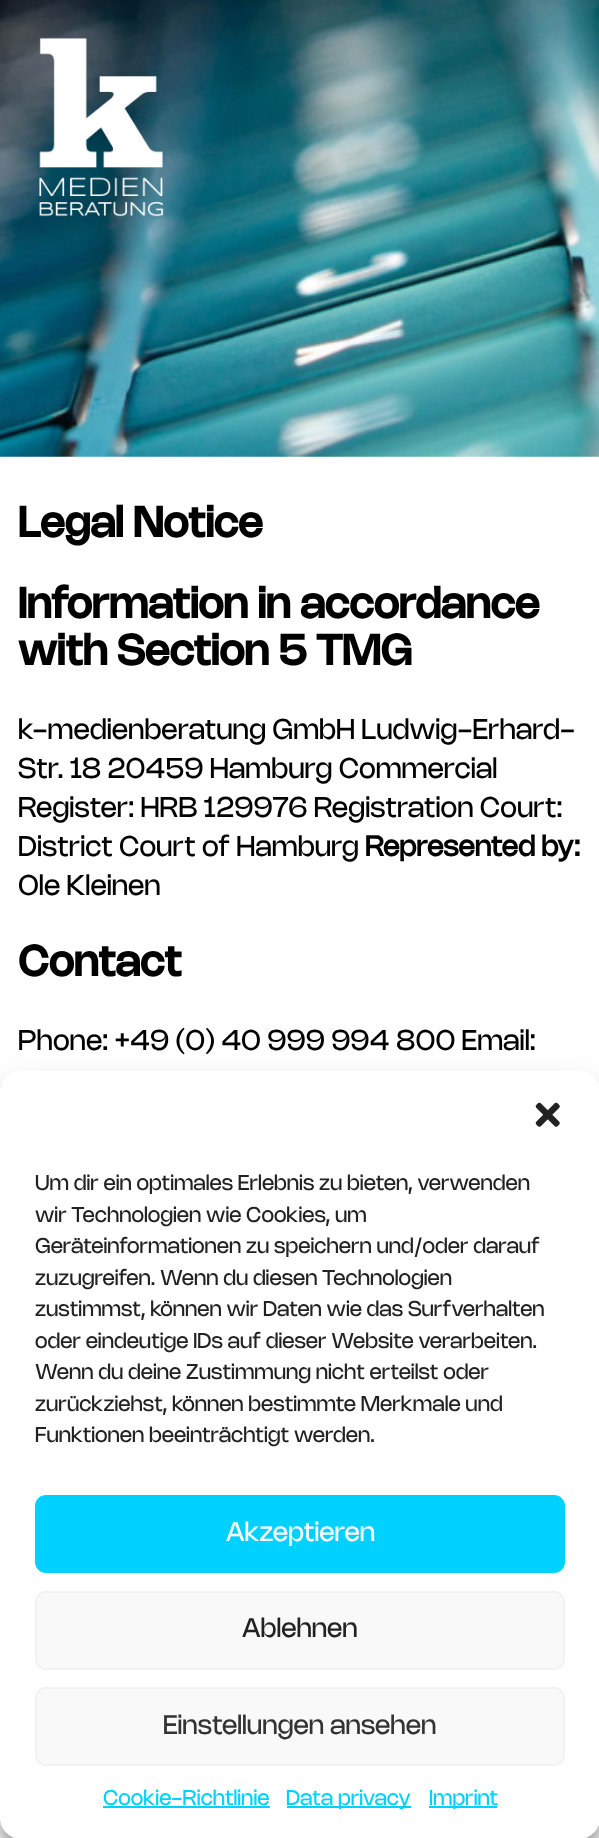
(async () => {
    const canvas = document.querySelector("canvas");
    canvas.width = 599;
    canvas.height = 1838;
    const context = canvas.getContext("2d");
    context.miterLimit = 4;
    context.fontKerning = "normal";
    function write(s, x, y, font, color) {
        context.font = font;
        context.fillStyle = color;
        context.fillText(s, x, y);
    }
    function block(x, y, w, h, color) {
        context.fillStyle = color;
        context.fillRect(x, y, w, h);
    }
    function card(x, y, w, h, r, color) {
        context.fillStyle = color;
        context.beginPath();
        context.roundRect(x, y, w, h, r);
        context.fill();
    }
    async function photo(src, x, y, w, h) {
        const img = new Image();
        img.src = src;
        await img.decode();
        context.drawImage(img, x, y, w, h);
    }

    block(0, 0, 599, 1838, "rgb(255, 255, 255)");
    await photo("media/2.png", 0, 0, 599, 457);
    await photo("media/1.png", 39, 37, 125, 180);
    write("Legal Notice", 18, 537, "bold 42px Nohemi", "rgb(0, 0, 0)");
    write("Information in accordance", 18, 618, "bold 42px Nohemi", "rgb(0, 0, 0)");
    write("with Section 5 TMG", 18, 665, "bold 42px Nohemi", "rgb(0, 0, 0)");
    write("k-medienberatung GmbH Ludwig-Erhard-", 18, 739, "28px Nohemi", "rgb(0, 0, 0)");
    write("Str. 18 20459 Hamburg Commercial", 18, 778, "28px Nohemi", "rgb(0, 0, 0)");
    write("Register: HRB 129976 Registration Court:", 18, 817, "28px Nohemi", "rgb(0, 0, 0)");
    write("District Court of Hamburg", 18, 856, "28px Nohemi", "rgb(0, 0, 0)");
    write("Represented by:", 365, 856, "bold 28px 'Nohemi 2'", "rgb(0, 0, 0)");
    write("Ole Kleinen", 18, 895, "28px Nohemi", "rgb(0, 0, 0)");
    write("Contact", 18, 976, "bold 42px Nohemi", "rgb(0, 0, 0)");
    write("Phone: +49 (0) 40 999 994 800 Email:", 18, 1050, "28px Nohemi", "rgb(0, 0, 0)");
    context.fillStyle = "rgba(0, 0, 0, 0.23)";
    context.filter = "blur(5px)";
    context.beginPath();
    context.roundRect(0, 1082, 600, 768, 21);
    context.fill();
    context.filter = "none";
    context.fillStyle = "rgba(0, 0, 0, 0.19)";
    context.filter = "blur(17.5px)";
    context.beginPath();
    context.roundRect(0, 1089, 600, 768, 21);
    context.fill();
    context.filter = "none";
    card(0, 1071, 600, 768, 21, "rgb(255, 255, 255)");
    await photo("media/3.png", 535, 1102, 25, 25);
    write("Um dir ein optimales Erlebnis zu bieten, verwenden", 35, 1190, "21px Nohemi", "rgb(34, 34, 34)");
    write("wir Technologien wie Cookies, um", 35, 1222, "21px Nohemi", "rgb(34, 34, 34)");
    write("Geräteinformationen zu speichern und/oder darauf", 35, 1253, "21px Nohemi", "rgb(34, 34, 34)");
    write("zuzugreifen. Wenn du diesen Technologien", 35, 1285, "21px Nohemi", "rgb(34, 34, 34)");
    write("zustimmst, können wir Daten wie das Surfverhalten", 35, 1316, "21px Nohemi", "rgb(34, 34, 34)");
    write("oder eindeutige IDs auf dieser Website verarbeiten.", 35, 1348, "21px Nohemi", "rgb(34, 34, 34)");
    write("Wenn du deine Zustimmung nicht erteilst oder", 35, 1379, "21px Nohemi", "rgb(34, 34, 34)");
    write("zurückziehst, können bestimmte Merkmale und", 35, 1411, "21px Nohemi", "rgb(34, 34, 34)");
    write("Funktionen beeinträchtigt werden.", 35, 1442, "21px Nohemi", "rgb(34, 34, 34)");
    context.fillStyle = "rgb(0, 209, 255)";
    context.beginPath();
    context.roundRect(36, 1496, 528, 76, 10);
    context.fill();
    context.strokeStyle = "rgb(0, 209, 255)";
    context.lineWidth = 2;
    context.stroke();
    write("Akzeptieren", 226, 1541, "26.25px Nohemi", "rgb(255, 255, 255)");
    context.fillStyle = "rgb(249, 249, 249)";
    context.beginPath();
    context.roundRect(36, 1592, 528, 77, 10);
    context.fill();
    context.strokeStyle = "rgb(242, 242, 242)";
    context.stroke();
    write("Ablehnen", 242, 1637, "26.25px Nohemi", "rgb(34, 34, 34)");
    context.fillStyle = "rgb(249, 249, 249)";
    context.beginPath();
    context.roundRect(36, 1688, 528, 77, 10);
    context.fill();
    context.stroke();
    write("Einstellungen ansehen", 163, 1734, "26.25px Nohemi", "rgb(51, 51, 51)");
    write("Cookie-Richtlinie", 103, 1805, "21px Nohemi", "rgb(0, 209, 255)");
    block(103, 1806, 167, 2, "rgb(0, 209, 255)");
    block(287, 1806, 124, 2, "rgb(0, 209, 255)");
    write("Data privacy", 286, 1805, "21px Nohemi", "rgb(0, 209, 255)");
    block(429, 1806, 68, 2, "rgb(0, 209, 255)");
    write("Imprint", 429, 1805, "21px Nohemi", "rgb(0, 209, 255)");
})();
